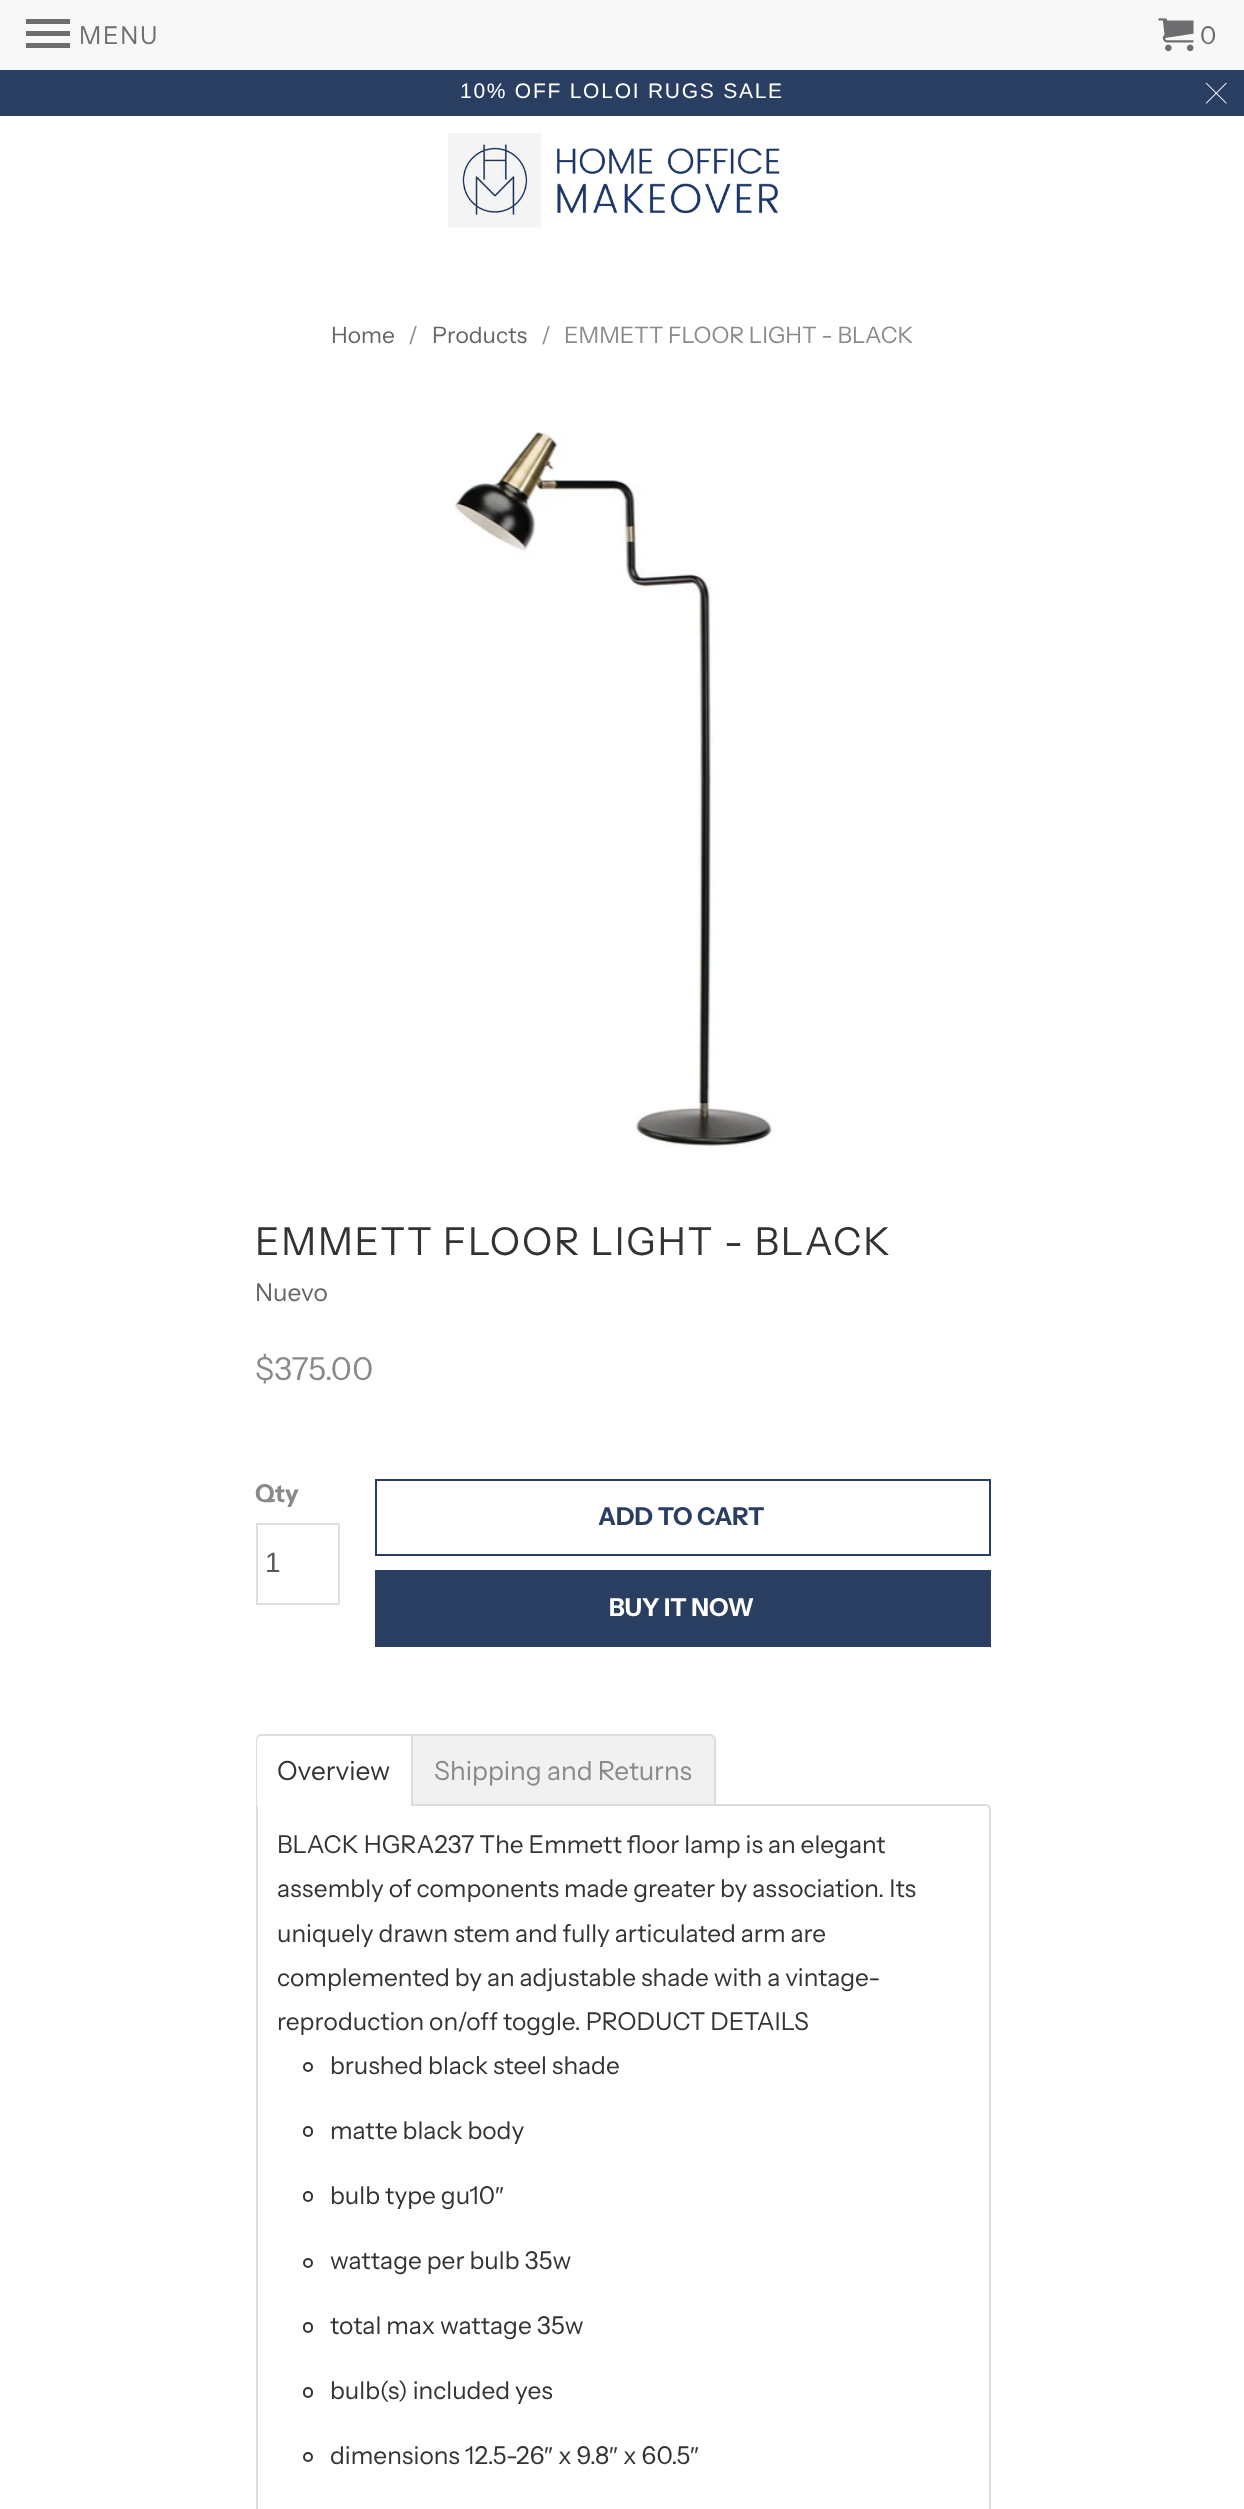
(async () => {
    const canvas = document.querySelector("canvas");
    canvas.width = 1244;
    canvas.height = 2509;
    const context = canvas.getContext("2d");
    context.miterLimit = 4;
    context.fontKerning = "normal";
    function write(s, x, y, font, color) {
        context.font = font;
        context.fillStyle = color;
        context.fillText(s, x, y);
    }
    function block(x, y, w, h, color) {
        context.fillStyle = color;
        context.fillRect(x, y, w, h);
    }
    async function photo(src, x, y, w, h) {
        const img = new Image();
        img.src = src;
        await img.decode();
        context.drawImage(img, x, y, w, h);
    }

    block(0, 0, 1244, 2509, "rgb(255, 255, 255)");
    block(0, 0, 1244, 68, "rgb(248, 248, 248)");
    block(0, 68, 1244, 2, "rgb(245, 246, 246)");
    context.fillStyle = "rgb(109, 109, 111)";
    context.beginPath();
    context.moveTo(26, 48);
    context.lineTo(70, 48);
    context.lineTo(70, 43);
    context.lineTo(26, 43);
    context.closePath();
    context.moveTo(26, 36);
    context.lineTo(70, 36);
    context.lineTo(70, 31);
    context.lineTo(26, 31);
    context.closePath();
    context.moveTo(26, 19);
    context.lineTo(26, 24);
    context.lineTo(70, 24);
    context.lineTo(70, 19);
    context.closePath();
    context.fill();
    context.letterSpacing = "1.75px";
    write("MENU", 79, 44, "24.5px Instrument Sans", "rgb(109, 109, 111)");
    await photo("media/1.png", 1158, 18, 36, 34);
    write("0", 1200, 44, "24.5px Instrument Sans", "rgb(109, 109, 111)");
    block(0, 70, 1244, 46, "rgb(42, 62, 97)");
    write("10% OFF LOLOI RUGS SALE", 460, 98, "21px Liberation Sans", "rgb(255, 255, 255)");
    await photo("media/2.png", 1205, 82, 22, 22);
    await photo("media/3.png", 448, 133, 332, 95);
    context.letterSpacing = "0px";
    write("Home", 331, 343, "22.75px Instrument Sans", "rgb(101, 101, 103)");
    write("/", 408, 343, "22.75px Instrument Sans", "rgb(138, 138, 141)");
    write("Products", 432, 343, "22.75px Instrument Sans", "rgb(101, 101, 103)");
    write("/", 541, 343, "22.75px Instrument Sans", "rgb(138, 138, 141)");
    write("EMMETT FLOOR LIGHT - BLACK", 564, 343, "22.75px Instrument Sans", "rgb(138, 138, 141)");
    await photo("media/4.png", 451, 432, 324, 715);
    context.letterSpacing = "1.75px";
    write("EMMETT FLOOR LIGHT - BLACK", 255, 1255, "38.5px Instrument Sans", "rgb(51, 51, 51)");
    context.letterSpacing = "0px";
    write("Nuevo", 255, 1301, "24.5px Instrument Sans", "rgb(101, 101, 103)");
    write("$375.00", 255, 1380, "31.5px Instrument Sans", "rgb(138, 138, 141)");
    write("Qty", 255, 1502, "bold 24.5px Instrument Sans", "rgb(138, 138, 141)");
    context.strokeStyle = "rgb(220, 224, 224)";
    context.lineWidth = 2;
    context.strokeRect(257, 1524, 82, 80);
    write("1", 265, 1572, "28px Liberation Sans", "rgb(86, 90, 92)");
    context.strokeStyle = "rgb(42, 62, 97)";
    context.strokeRect(376, 1480, 614, 75);
    write("ADD TO CART", 598, 1525, "bold 24.5px Instrument Sans", "rgb(42, 62, 97)");
    block(375, 1570, 616, 77, "rgb(42, 62, 97)");
    write("BUY IT NOW", 609, 1616, "bold 24.5px Instrument Sans", "rgb(255, 255, 255)");
    context.beginPath();
    context.moveTo(257, 1805);
    context.lineTo(986, 1805);
    context.bezierCurveTo(988, 1805, 990, 1807, 990, 1809);
    context.lineTo(990, 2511);
    context.bezierCurveTo(990, 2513, 988, 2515, 986, 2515);
    context.lineTo(261, 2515);
    context.bezierCurveTo(259, 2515, 257, 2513, 257, 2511);
    context.closePath();
    context.strokeStyle = "rgb(221, 221, 221)";
    context.stroke();
    context.beginPath();
    context.roundRect(257, 1736, 154, 70, [4, 0, 0, 0]);
    context.fill();
    context.fillStyle = "rgb(221, 221, 221)";
    context.beginPath();
    context.moveTo(261, 1734);
    context.lineTo(413, 1734);
    context.lineTo(413, 1806);
    context.lineTo(256, 1806);
    context.lineTo(256, 1740);
    context.bezierCurveTo(256, 1737, 258, 1734, 261, 1734);
    context.closePath();
    context.moveTo(261, 1736);
    context.lineTo(411, 1736);
    context.lineTo(411, 1806);
    context.lineTo(257, 1806);
    context.lineTo(257, 1740);
    context.bezierCurveTo(257, 1738, 259, 1736, 261, 1736);
    context.closePath();
    context.fill("evenodd");
    write("Overview", 277, 1780, "26.25px Instrument Sans", "rgb(51, 51, 51)");
    context.fillStyle = "rgb(241, 241, 241)";
    context.beginPath();
    context.roundRect(413, 1736, 301, 68, [0, 4, 0, 0]);
    context.fill();
    context.fillStyle = "rgb(221, 221, 221)";
    context.beginPath();
    context.moveTo(413, 1734);
    context.lineTo(710, 1734);
    context.bezierCurveTo(713, 1734, 716, 1737, 716, 1740);
    context.lineTo(716, 1806);
    context.lineTo(413, 1806);
    context.closePath();
    context.moveTo(413, 1736);
    context.lineTo(710, 1736);
    context.bezierCurveTo(712, 1736, 714, 1738, 714, 1740);
    context.lineTo(714, 1804);
    context.lineTo(413, 1804);
    context.closePath();
    context.fill("evenodd");
    write("Shipping and Returns", 434, 1780, "26.25px Instrument Sans", "rgb(138, 138, 141)");
    write("BLACK HGRA237 The Emmett floor lamp is an elegant", 277, 1853, "24.5px Instrument Sans", "rgb(51, 51, 51)");
    write("assembly of components made greater by association. Its", 277, 1897, "24.5px Instrument Sans", "rgb(51, 51, 51)");
    write("uniquely drawn stem and fully articulated arm are", 277, 1942, "24.5px Instrument Sans", "rgb(51, 51, 51)");
    write("complemented by an adjustable shade with a vintage-", 277, 1986, "24.5px Instrument Sans", "rgb(51, 51, 51)");
    write("reproduction on/off toggle. PRODUCT DETAILS", 277, 2030, "24.5px Instrument Sans", "rgb(51, 51, 51)");
    context.beginPath();
    context.arc(308, 2067, 4, 0, Math.PI * 2);
    context.strokeStyle = "rgb(51, 51, 51)";
    context.stroke();
    write("brushed black steel shade", 330, 2074, "24.5px Instrument Sans", "rgb(51, 51, 51)");
    context.beginPath();
    context.roundRect(304, 2127, 8, 9, 4);
    context.stroke();
    write("matte black body", 330, 2139, "24.5px Instrument Sans", "rgb(51, 51, 51)");
    context.beginPath();
    context.roundRect(304, 2192, 8, 9, 4);
    context.stroke();
    write("bulb type gu10", 330, 2204, "24.5px Instrument Sans", "rgb(51, 51, 51)");
    write("″", 495, 2204, "24.5px Liberation Sans", "rgb(51, 51, 51)");
    context.beginPath();
    context.arc(308, 2263, 4, 0, Math.PI * 2);
    context.stroke();
    write("wattage per bulb 35w", 330, 2269, "24.5px Instrument Sans", "rgb(51, 51, 51)");
    context.beginPath();
    context.roundRect(304, 2323, 8, 9, 4);
    context.stroke();
    write("total max wattage 35w", 330, 2334, "24.5px Instrument Sans", "rgb(51, 51, 51)");
    context.beginPath();
    context.roundRect(304, 2388, 8, 9, 4);
    context.stroke();
    write("bulb(s) included yes", 330, 2399, "24.5px Instrument Sans", "rgb(51, 51, 51)");
    write("dimensions 12.5-26", 330, 2464, "24.5px Instrument Sans", "rgb(51, 51, 51)");
    write("″", 544, 2464, "24.5px Liberation Sans", "rgb(51, 51, 51)");
    write("x 9.8", 558, 2464, "24.5px Instrument Sans", "rgb(51, 51, 51)");
    write("″", 609, 2464, "24.5px Liberation Sans", "rgb(51, 51, 51)");
    write("x 60.5", 623, 2464, "24.5px Instrument Sans", "rgb(51, 51, 51)");
    write("″", 690, 2464, "24.5px Liberation Sans", "rgb(51, 51, 51)");
    context.beginPath();
    context.arc(308, 2457, 4, 0, Math.PI * 2);
    context.stroke();
})();
